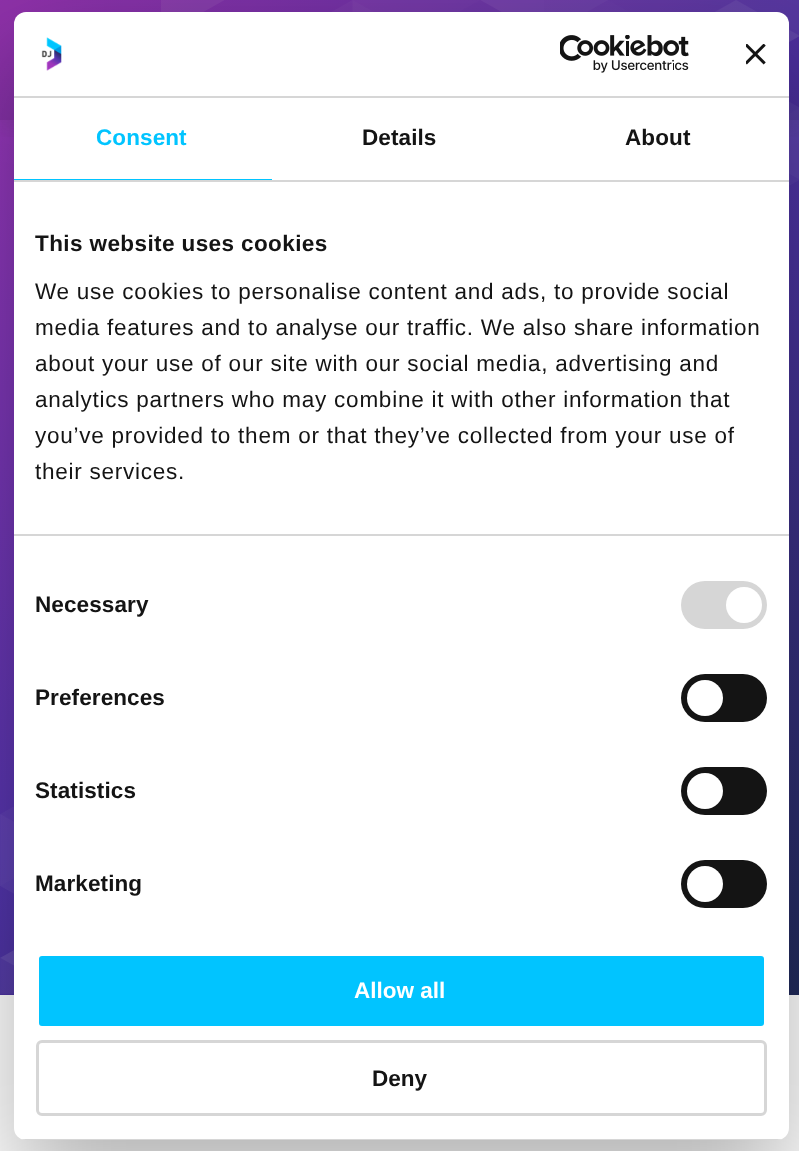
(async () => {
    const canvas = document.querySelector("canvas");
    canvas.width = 799;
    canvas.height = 1151;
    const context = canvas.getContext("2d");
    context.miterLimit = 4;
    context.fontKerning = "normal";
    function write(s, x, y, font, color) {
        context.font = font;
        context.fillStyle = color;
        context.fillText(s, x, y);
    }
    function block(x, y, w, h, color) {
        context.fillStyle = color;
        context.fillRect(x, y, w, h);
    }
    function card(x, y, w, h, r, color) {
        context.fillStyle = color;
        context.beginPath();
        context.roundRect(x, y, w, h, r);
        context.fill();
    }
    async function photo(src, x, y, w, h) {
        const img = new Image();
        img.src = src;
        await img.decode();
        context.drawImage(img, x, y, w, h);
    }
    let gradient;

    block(0, 0, 799, 1151, "rgb(255, 255, 255)");
    gradient = context.createLinearGradient(-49, 49, 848, 946);
    gradient.addColorStop(0, "rgb(159, 55, 187)");
    gradient.addColorStop(0.48, "rgb(84, 53, 174)");
    gradient.addColorStop(1, "rgb(33, 43, 91)");
    context.fillStyle = gradient;
    context.fillRect(0, 0, 799, 995);
    await photo("media/1.png", 161, 0, 638, 185);
    block(0, 0, 799, 120, "rgba(0, 0, 0, 0.1)");
    context.save();
    context.beginPath();
    context.rect(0, 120, 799, 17);
    context.clip();
    context.fillStyle = "rgba(60, 60, 59, 0.15)";
    context.filter = "blur(11px)";
    context.beginPath();
    context.rect(0, 6, 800, 120);
    context.fill();
    context.filter = "none";
    context.restore();
    await photo("media/2.png", 0, 807, 14, 187);
    context.fillStyle = "rgba(0, 0, 0, 0.3)";
    context.filter = "blur(51px)";
    context.beginPath();
    context.roundRect(14, 60, 775, 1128, 12);
    context.fill();
    context.filter = "none";
    card(14, 12, 775, 1128, 12, "rgb(255, 255, 255)");
    block(14, 96, 775, 2, "rgb(214, 214, 214)");
    await photo("media/3.png", 41, 37, 21, 34);
    await photo("media/4.png", 560, 35, 129, 38);
    await photo("media/5.png", 746, 44, 20, 21);
    block(14, 180, 775, 2, "rgb(214, 214, 214)");
    block(14, 179, 258, 1, "rgb(1, 196, 255)");
    context.letterSpacing = "0.1px";
    write("Consent", 96, 145, "bold 22.5px Liberation Sans", "rgb(1, 196, 255)");
    write("Details", 362, 145, "bold 22.5px Liberation Sans", "rgb(20, 20, 20)");
    write("About", 625, 145, "bold 22.5px Liberation Sans", "rgb(20, 20, 20)");
    block(14, 534, 775, 2, "rgb(214, 214, 214)");
    context.letterSpacing = "0.4px";
    write("This website uses cookies", 35, 251, "bold 22.5px Liberation Sans", "rgb(20, 20, 20)");
    context.letterSpacing = "0.75px";
    write("We use cookies to personalise content and ads, to provide social", 35, 299, "22.5px Liberation Sans", "rgb(20, 20, 20)");
    write("media features and to analyse our traffic. We also share information", 35, 335, "22.5px Liberation Sans", "rgb(20, 20, 20)");
    write("about your use of our site with our social media, advertising and", 35, 371, "22.5px Liberation Sans", "rgb(20, 20, 20)");
    write("analytics partners who may combine it with other information that", 35, 407, "22.5px Liberation Sans", "rgb(20, 20, 20)");
    write("you’ve provided to them or that they’ve collected from your use of", 35, 443, "22.5px Liberation Sans", "rgb(20, 20, 20)");
    write("their services.", 35, 479, "22.5px Liberation Sans", "rgb(20, 20, 20)");
    context.letterSpacing = "0.1px";
    write("Necessary", 35, 612, "bold 22.5px Liberation Sans", "rgb(20, 20, 20)");
    card(681, 581, 86, 48, 24, "rgb(214, 214, 214)");
    context.fillStyle = "rgb(255, 255, 255)";
    context.beginPath();
    context.arc(744, 605, 18, 0, Math.PI * 2);
    context.fill();
    write("Preferences", 35, 705, "bold 22.5px Liberation Sans", "rgb(20, 20, 20)");
    card(681, 674, 86, 48, 24, "rgb(20, 20, 20)");
    context.fillStyle = "rgb(255, 255, 255)";
    context.beginPath();
    context.arc(705, 698, 18, 0, Math.PI * 2);
    context.fill();
    write("Statistics", 35, 798, "bold 22.5px Liberation Sans", "rgb(20, 20, 20)");
    card(681, 767, 86, 48, 24, "rgb(20, 20, 20)");
    context.fillStyle = "rgb(255, 255, 255)";
    context.beginPath();
    context.arc(705, 791, 18, 0, Math.PI * 2);
    context.fill();
    write("Marketing", 35, 891, "bold 22.5px Liberation Sans", "rgb(20, 20, 20)");
    card(681, 860, 86, 48, 24, "rgb(20, 20, 20)");
    context.fillStyle = "rgb(255, 255, 255)";
    context.beginPath();
    context.arc(705, 884, 18, 0, Math.PI * 2);
    context.fill();
    context.save();
    context.beginPath();
    context.roundRect(14, 12, 775, 1128, 12);
    context.clip();
    block(14, 1139, 775, 1, "rgb(214, 214, 214)");
    context.restore();
    context.fillStyle = "rgb(1, 196, 255)";
    context.beginPath();
    context.roundRect(37.5, 954.5, 728, 73, 4.5);
    context.fill();
    context.strokeStyle = "rgb(255, 255, 255)";
    context.lineWidth = 3;
    context.stroke();
    context.letterSpacing = "0px";
    write("Allow all", 354, 998, "bold 22.5px Liberation Sans", "rgb(255, 255, 255)");
    context.beginPath();
    context.roundRect(37.5, 1041.5, 728, 73, 4.5);
    context.strokeStyle = "rgb(214, 214, 214)";
    context.stroke();
    write("Deny", 372, 1086, "bold 22.5px Liberation Sans", "rgb(20, 20, 20)");
})();
